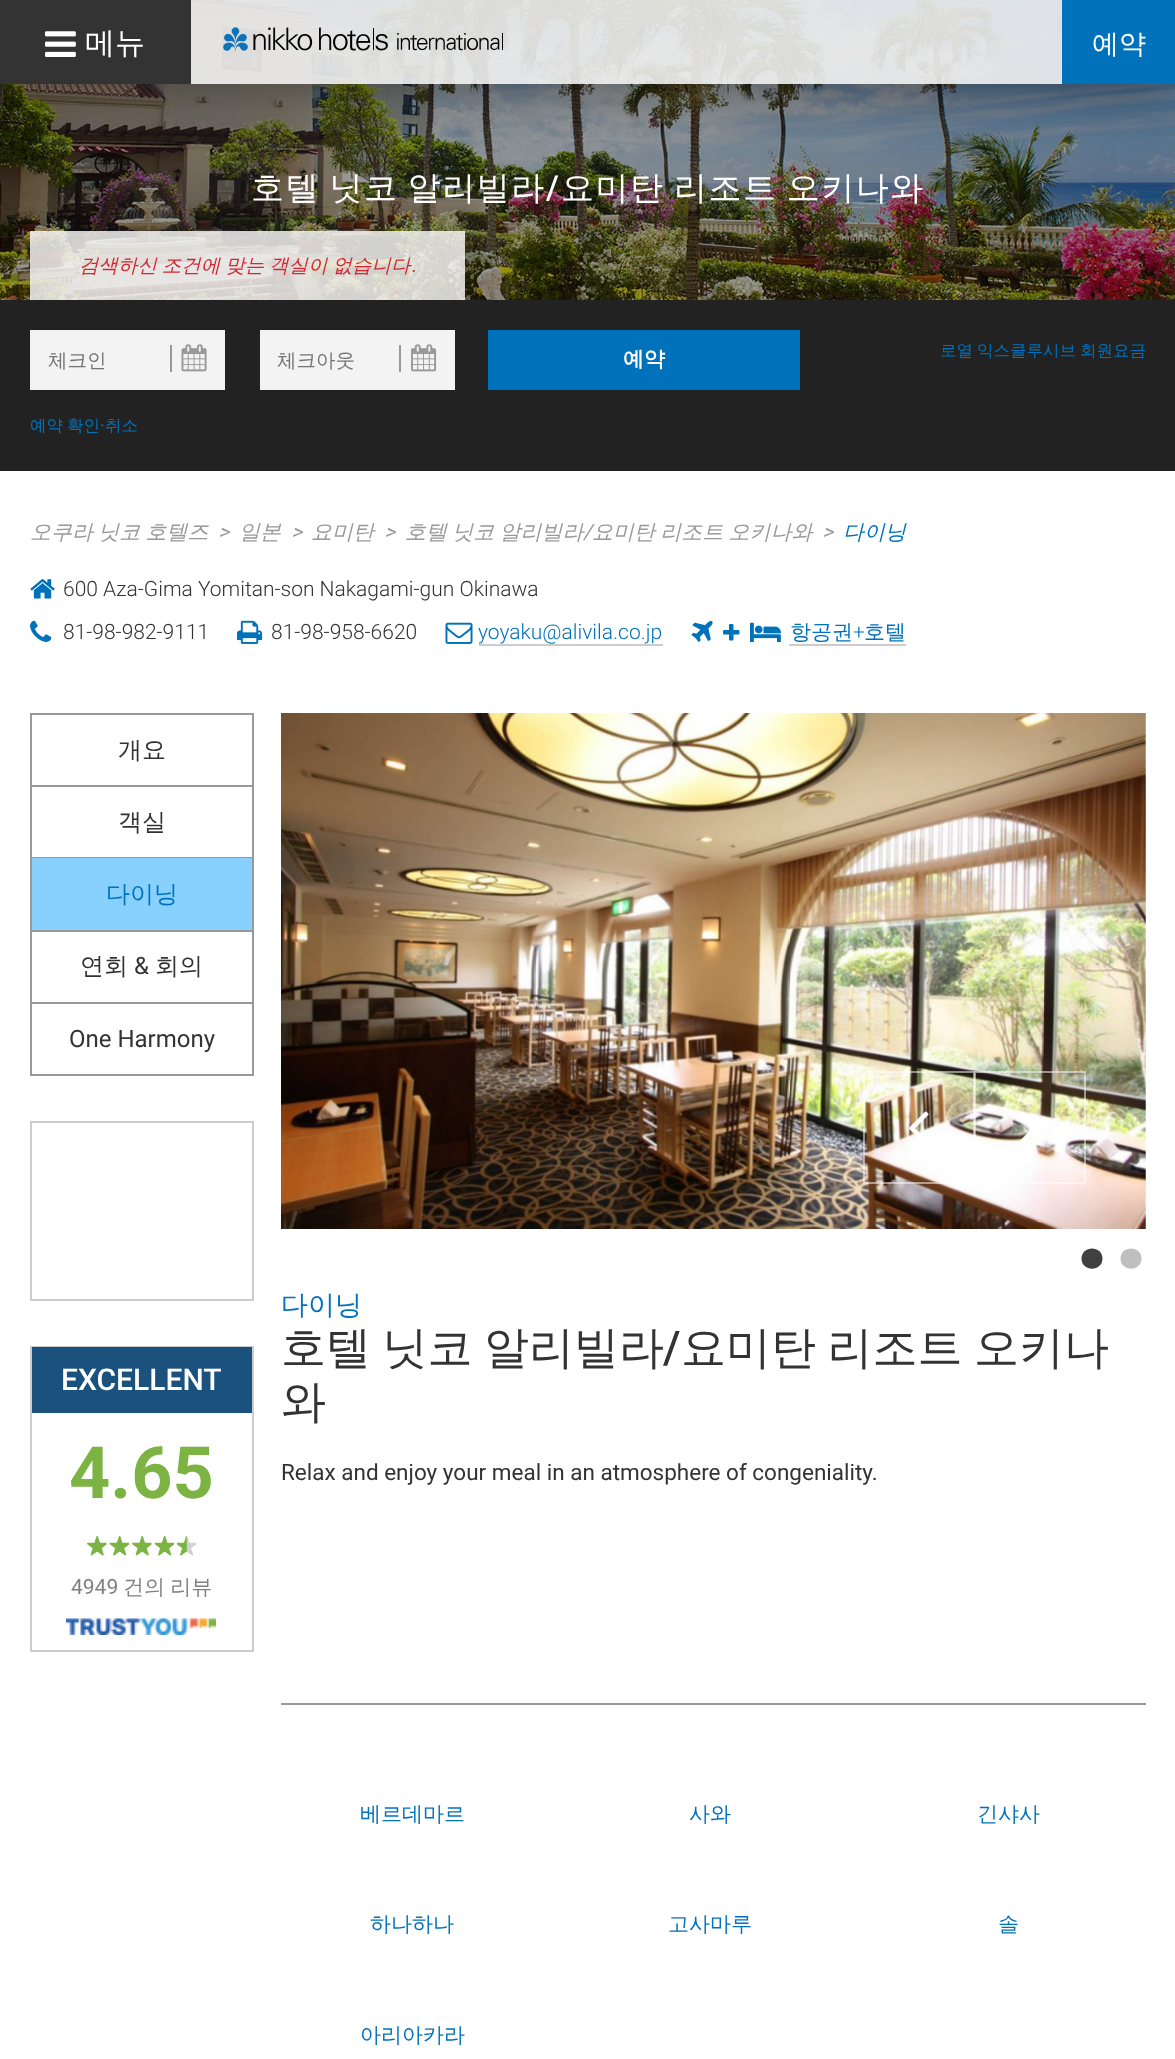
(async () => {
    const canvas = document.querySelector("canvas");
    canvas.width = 1175;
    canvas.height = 2059;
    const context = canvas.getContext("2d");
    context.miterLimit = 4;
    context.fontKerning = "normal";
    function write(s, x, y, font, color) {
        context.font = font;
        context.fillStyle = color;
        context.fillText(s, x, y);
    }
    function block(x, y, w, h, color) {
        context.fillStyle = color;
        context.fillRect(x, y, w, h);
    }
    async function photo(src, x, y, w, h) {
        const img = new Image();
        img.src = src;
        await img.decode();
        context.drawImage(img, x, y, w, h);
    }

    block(0, 0, 1175, 2059, "rgb(255, 255, 255)");
    await photo("media/3.png", 0, 0, 1175, 300);
    context.save();
    context.beginPath();
    context.rect(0, 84, 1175, 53);
    context.clip();
    context.fillStyle = "rgba(0, 0, 0, 0.5)";
    context.filter = "blur(30px)";
    context.beginPath();
    context.rect(0, 0, 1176, 84);
    context.fill();
    context.filter = "none";
    context.restore();
    block(191, 0, 871, 84, "rgba(239, 239, 239, 0.9)");
    block(0, 0, 191, 84, "rgb(51, 51, 51)");
    await photo("media/1.png", 45, 31, 31, 26);
    write("메뉴", 85, 53, "500 30px WenQuanYi Zen Hei", "rgb(255, 255, 255)");
    await photo("media/2.png", 223, 27, 280, 25);
    block(1062, 0, 113, 84, "rgb(0, 114, 187)");
    write("예약", 1092, 53, "500 27px WenQuanYi Zen Hei", "rgb(255, 255, 255)");
    context.letterSpacing = "1.5px";
    context.wordSpacing = "-2px";
    write("호텔 닛코 알리빌라", 251, 199, "500 33px WenQuanYi Zen Hei", "rgb(255, 255, 255)");
    context.wordSpacing = "0px";
    write("/", 546, 199, "500 33px Roboto", "rgb(255, 255, 255)");
    context.wordSpacing = "-2px";
    write("요미탄 리조트 오키나와", 561, 199, "500 33px WenQuanYi Zen Hei", "rgb(255, 255, 255)");
    block(30, 231, 435, 69, "rgba(255, 255, 255, 0.8)");
    context.letterSpacing = "0px";
    context.wordSpacing = "-1px";
    write("검색하신 조건에 맞는 객실이 없습니다", 79, 272, "italic 500 19.5px WenQuanYi Zen Hei", "rgb(213, 38, 49)");
    context.wordSpacing = "0px";
    write(".", 411, 272, "italic 19.5px Roboto", "rgb(213, 38, 49)");
    block(0, 300, 1175, 171, "rgb(34, 34, 34)");
    block(30, 330, 195, 60, "rgb(243, 243, 243)");
    write("체크인", 48, 367, "500 19.5px WenQuanYi Zen Hei", "rgb(117, 117, 117)");
    block(170, 345, 2, 27, "rgb(153, 153, 153)");
    await photo("media/4.png", 181, 344, 26, 28);
    block(260, 330, 195, 60, "rgb(243, 243, 243)");
    write("체크아웃", 277, 367, "500 19.5px WenQuanYi Zen Hei", "rgb(117, 117, 117)");
    block(399, 345, 2, 27, "rgb(153, 153, 153)");
    await photo("media/5.png", 411, 344, 26, 28);
    block(488, 330, 312, 60, "rgb(0, 114, 187)");
    write("예약", 623, 366, "bold 21px WenQuanYi Zen Hei", "rgb(255, 255, 255)");
    context.wordSpacing = "-1px";
    write("로열 익스클루시브 회원요금", 940, 356, "500 16.5px WenQuanYi Zen Hei", "rgb(0, 114, 187)");
    write("예약 확인", 30, 431, "500 16.5px WenQuanYi Zen Hei", "rgb(0, 114, 187)");
    context.wordSpacing = "0px";
    write("·", 100, 431, "500 16.5px Roboto", "rgb(0, 114, 187)");
    write("취소", 105, 431, "500 16.5px WenQuanYi Zen Hei", "rgb(0, 114, 187)");
    context.wordSpacing = "-1px";
    write("오쿠라 닛코 호텔즈", 30, 539, "italic 500 21px WenQuanYi Zen Hei", "rgb(153, 153, 153)");
    context.wordSpacing = "0px";
    write(">", 218, 539, "italic 21px Roboto", "rgb(153, 153, 153)");
    write("일본", 239, 539, "italic 500 21px WenQuanYi Zen Hei", "rgb(153, 153, 153)");
    write(">", 291, 539, "italic 21px Roboto", "rgb(153, 153, 153)");
    write("요미탄", 311, 539, "italic 500 21px WenQuanYi Zen Hei", "rgb(153, 153, 153)");
    write(">", 384, 539, "italic 21px Roboto", "rgb(153, 153, 153)");
    context.wordSpacing = "-1px";
    write("호텔 닛코 알리빌라", 405, 539, "italic 500 21px WenQuanYi Zen Hei", "rgb(153, 153, 153)");
    context.wordSpacing = "0px";
    write("/", 583, 539, "italic 21px Roboto", "rgb(153, 153, 153)");
    context.wordSpacing = "-1px";
    write("요미탄 리조트 오키나와", 592, 539, "italic 500 21px WenQuanYi Zen Hei", "rgb(153, 153, 153)");
    context.wordSpacing = "0px";
    write(">", 822, 539, "italic 21px Roboto", "rgb(153, 153, 153)");
    write("다이닝", 843, 539, "italic 500 21px WenQuanYi Zen Hei", "rgb(0, 114, 187)");
    await photo("media/6.png", 30, 579, 25, 20);
    write("600 Aza-Gima Yomitan-son Nakagami-gun Okinawa", 63, 596, "300 21px Roboto", "rgb(51, 51, 51)");
    await photo("media/7.png", 30, 620, 22, 22);
    write("81-98-982-9111", 63, 639, "300 21px Roboto", "rgb(51, 51, 51)");
    await photo("media/8.png", 237, 620, 26, 24);
    write("81-98-958-6620", 271, 639, "300 21px Roboto", "rgb(51, 51, 51)");
    await photo("media/9.png", 445, 622, 28, 22);
    write("yoyaku@alivila.co.jp", 478, 639, "300 21px Roboto", "rgb(0, 114, 187)");
    block(479, 644, 184, 2, "rgb(204, 204, 204)");
    await photo("media/10.png", 691, 620, 22, 22);
    await photo("media/11.png", 723, 624, 17, 17);
    await photo("media/12.png", 750, 622, 31, 20);
    write("항공권", 790, 639, "500 21px WenQuanYi Zen Hei", "rgb(0, 114, 187)");
    block(789, 644, 117, 2, "rgb(204, 204, 204)");
    write("+", 853, 639, "300 21px Roboto", "rgb(0, 114, 187)");
    write("호텔", 864, 639, "500 21px WenQuanYi Zen Hei", "rgb(0, 114, 187)");
    context.strokeStyle = "rgb(153, 153, 153)";
    context.lineWidth = 2;
    context.strokeRect(31, 714, 222, 361);
    block(32, 785, 220, 2, "rgb(153, 153, 153)");
    write("개요", 118, 758, "500 24px WenQuanYi Zen Hei", "rgb(51, 51, 51)");
    block(32, 857, 220, 1, "rgb(153, 153, 153)");
    write("객실", 118, 830, "500 24px WenQuanYi Zen Hei", "rgb(51, 51, 51)");
    block(32, 858, 220, 72, "rgb(136, 209, 255)");
    block(32, 930, 220, 2, "rgb(153, 153, 153)");
    write("다이닝", 106, 902, "500 24px WenQuanYi Zen Hei", "rgb(0, 114, 187)");
    block(32, 1002, 220, 2, "rgb(153, 153, 153)");
    write("연회", 80, 974, "500 24px WenQuanYi Zen Hei", "rgb(51, 51, 51)");
    write("&", 134, 974, "24px Roboto", "rgb(51, 51, 51)");
    write("회의", 155, 974, "500 24px WenQuanYi Zen Hei", "rgb(51, 51, 51)");
    write("One Harmony", 69, 1047, "24px Roboto", "rgb(51, 51, 51)");
    context.strokeStyle = "rgb(204, 204, 204)";
    context.strokeRect(31, 1122, 222, 178);
    context.strokeRect(31, 1347, 222, 304);
    block(32, 1347, 220, 66, "rgba(1, 62, 111, 0.9)");
    write("EXCELLENT", 61, 1390, "500 30px Roboto", "rgb(255, 255, 255)");
    write("4.65", 69, 1498, "bold 72px Roboto", "rgb(124, 179, 66)");
    await photo("media/13.png", 87, 1536, 20, 20);
    await photo("media/14.png", 109, 1536, 20, 20);
    await photo("media/13.png", 132, 1536, 20, 20);
    await photo("media/14.png", 154, 1536, 20, 20);
    await photo("media/15.png", 177, 1536, 20, 20);
    write("4949", 71, 1594, "21px Roboto", "rgb(128, 128, 128)");
    context.wordSpacing = "-1px";
    write("건의 리뷰", 123, 1594, "500 21px WenQuanYi Zen Hei", "rgb(128, 128, 128)");
    await photo("media/16.png", 66, 1618, 150, 17);
    await photo("media/17.png", 281, 713, 865, 516);
    context.strokeStyle = "rgba(255, 255, 255, 0.5)";
    context.strokeRect(864, 1072, 110, 111);
    await photo("media/18.png", 909, 1111, 20, 27);
    context.strokeRect(975, 1072, 110, 111);
    await photo("media/19.png", 1019, 1111, 16, 32);
    context.fillStyle = "rgb(64, 64, 64)";
    context.beginPath();
    context.moveTo(1102.5, 1258.5);
    context.bezierCurveTo(1102.5, 1245, 1081.5, 1245, 1081.5, 1258.5);
    context.bezierCurveTo(1081.5, 1272, 1102.5, 1272, 1102.5, 1258.5);
    context.closePath();
    context.fill();
    context.fillStyle = "rgb(191, 191, 191)";
    context.beginPath();
    context.moveTo(1141.5, 1258.5);
    context.bezierCurveTo(1141.5, 1245, 1120.5, 1245, 1120.5, 1258.5);
    context.bezierCurveTo(1120.5, 1272, 1141.5, 1272, 1141.5, 1258.5);
    context.closePath();
    context.fill();
    block(281, 1703, 865, 2, "rgb(153, 153, 153)");
    context.wordSpacing = "0px";
    write("다이닝", 281, 1314, "500 27px WenQuanYi Zen Hei", "rgb(0, 114, 187)");
    context.wordSpacing = "-2px";
    write("호텔 닛코 알리빌라", 281, 1363, "500 45px WenQuanYi Zen Hei", "rgb(51, 51, 51)");
    context.wordSpacing = "0px";
    write("/", 663, 1363, "500 45px Roboto", "rgb(51, 51, 51)");
    context.wordSpacing = "-2px";
    write("요미탄 리조트 오키나", 681, 1363, "500 45px WenQuanYi Zen Hei", "rgb(51, 51, 51)");
    context.wordSpacing = "0px";
    write("와", 281, 1417, "500 45px WenQuanYi Zen Hei", "rgb(51, 51, 51)");
    write("Relax and enjoy your meal in an atmosphere of congeniality.", 281, 1480, "22.5px Roboto", "rgb(51, 51, 51)");
    write("베르데마르", 360, 1821, "500 21px WenQuanYi Zen Hei", "rgb(0, 114, 187)");
    write("사와", 689, 1821, "500 21px WenQuanYi Zen Hei", "rgb(0, 114, 187)");
    write("긴샤사", 977, 1821, "500 21px WenQuanYi Zen Hei", "rgb(0, 114, 187)");
    write("하나하나", 370, 1931, "500 21px WenQuanYi Zen Hei", "rgb(0, 114, 187)");
    write("고사마루", 668, 1931, "500 21px WenQuanYi Zen Hei", "rgb(0, 114, 187)");
    write("솔", 998, 1931, "500 21px WenQuanYi Zen Hei", "rgb(0, 114, 187)");
    write("아리아카라", 360, 2042, "500 21px WenQuanYi Zen Hei", "rgb(0, 114, 187)");
})();
